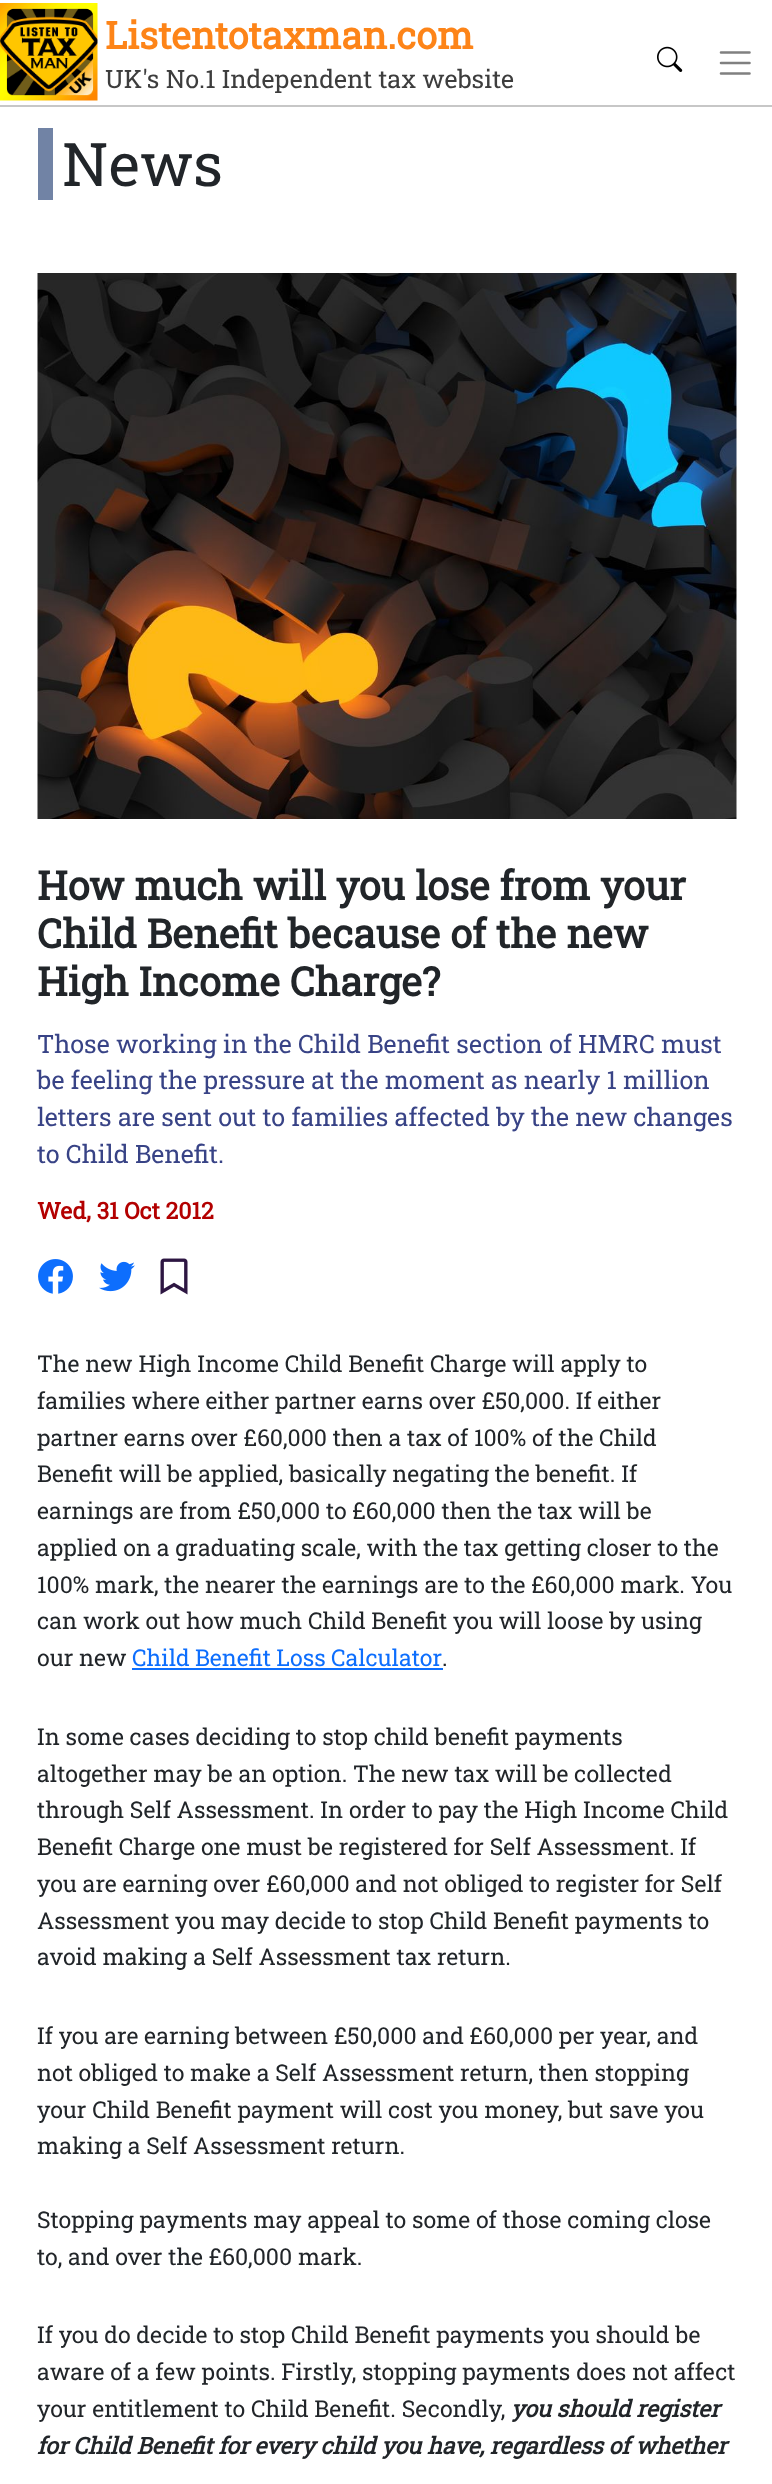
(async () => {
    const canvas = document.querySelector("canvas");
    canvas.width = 772;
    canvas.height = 2484;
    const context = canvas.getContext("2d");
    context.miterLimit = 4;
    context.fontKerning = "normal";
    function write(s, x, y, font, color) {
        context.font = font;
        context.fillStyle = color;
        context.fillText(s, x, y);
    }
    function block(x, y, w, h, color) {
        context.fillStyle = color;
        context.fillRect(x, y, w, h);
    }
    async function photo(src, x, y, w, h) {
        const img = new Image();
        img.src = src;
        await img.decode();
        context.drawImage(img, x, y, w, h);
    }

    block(0, 0, 772, 2484, "rgb(255, 255, 255)");
    block(0, 105, 772, 2, "rgb(199, 199, 199)");
    await photo("media/1.png", 0, 3, 98, 98);
    await photo("media/2.png", 657, 46, 26, 26);
    context.beginPath();
    context.moveTo(721, 52.5);
    context.lineTo(749.5, 52.5);
    context.moveTo(721, 63);
    context.lineTo(749.5, 63);
    context.moveTo(721, 73.5);
    context.lineTo(749.5, 73.5);
    context.strokeStyle = "rgb(128, 128, 128)";
    context.lineWidth = 2.6;
    context.lineCap = "round";
    context.stroke();
    write("Listentotaxman.com", 105, 49, "bold 37.75px Roboto Slab", "rgb(253, 132, 24)");
    write("UK's No.1 Independent tax website", 105, 88, "25.2px Roboto Slab", "rgb(61, 61, 61)");
    block(38, 128, 15, 72, "rgb(113, 131, 165)");
    write("News", 62, 186, "60px Roboto Slab", "rgb(33, 37, 41)");
    await photo("media/3.png", 37, 273, 700, 546);
    write("How much will you lose from your", 37, 900, "bold 39.9px Roboto Slab", "rgb(33, 37, 41)");
    write("Child Benefit because of the new", 37, 948, "bold 39.9px Roboto Slab", "rgb(33, 37, 41)");
    write("High Income Charge?", 37, 996, "bold 39.9px Roboto Slab", "rgb(33, 37, 41)");
    write("Those working in the Child Benefit section of HMRC must", 37, 1053, "25.2px Roboto Slab", "rgb(56, 67, 134)");
    write("be feeling the pressure at the moment as nearly 1 million", 37, 1089, "25.2px Roboto Slab", "rgb(56, 67, 134)");
    write("letters are sent out to families affected by the new changes", 37, 1126, "25.2px Roboto Slab", "rgb(56, 67, 134)");
    write("to Child Benefit.", 37, 1163, "25.2px Roboto Slab", "rgb(56, 67, 134)");
    write("Wed, 31 Oct 2012", 37, 1219, "bold 23.1px Roboto Slab", "rgb(179, 0, 0)");
    await photo("media/4.png", 38, 1259, 35, 35);
    await photo("media/5.png", 99, 1261, 36, 31);
    await photo("media/6.png", 160, 1258, 28, 37);
    write("The new High Income Child Benefit Charge will apply to", 37, 1372, "23.1px Roboto Slab", "rgb(33, 37, 41)");
    write("families where either partner earns over £50,000. If either", 37, 1409, "23.1px Roboto Slab", "rgb(33, 37, 41)");
    write("partner earns over £60,000 then a tax of 100% of the Child", 37, 1446, "23.1px Roboto Slab", "rgb(33, 37, 41)");
    write("Benefit will be applied, basically negating the benefit. If", 37, 1482, "23.1px Roboto Slab", "rgb(33, 37, 41)");
    write("earnings are from £50,000 to £60,000 then the tax will be", 37, 1519, "23.1px Roboto Slab", "rgb(33, 37, 41)");
    write("applied on a graduating scale, with the tax getting closer to the", 37, 1556, "23.1px Roboto Slab", "rgb(33, 37, 41)");
    write("100% mark, the nearer the earnings are to the £60,000 mark. You", 37, 1593, "23.1px Roboto Slab", "rgb(33, 37, 41)");
    write("can work out how much Child Benefit you will loose by using", 37, 1629, "23.1px Roboto Slab", "rgb(33, 37, 41)");
    write("our new", 37, 1666, "23.1px Roboto Slab", "rgb(33, 37, 41)");
    context.wordSpacing = "-0.5px";
    write("Child Benefit Loss Calculator", 132, 1666, "23.1px Roboto Slab", "rgb(13, 110, 253)");
    block(132, 1668, 311, 2, "rgb(13, 110, 253)");
    context.wordSpacing = "0px";
    write(".", 442, 1666, "23.1px Roboto Slab", "rgb(33, 37, 41)");
    write("In some cases deciding to stop child benefit payments", 37, 1745, "23.1px Roboto Slab", "rgb(33, 37, 41)");
    write("altogether may be an option. The new tax will be collected", 37, 1782, "23.1px Roboto Slab", "rgb(33, 37, 41)");
    write("through Self Assessment. In order to pay the High Income Child", 37, 1818, "23.1px Roboto Slab", "rgb(33, 37, 41)");
    write("Benefit Charge one must be registered for Self Assessment. If", 37, 1855, "23.1px Roboto Slab", "rgb(33, 37, 41)");
    write("you are earning over £60,000 and not obliged to register for Self", 37, 1892, "23.1px Roboto Slab", "rgb(33, 37, 41)");
    write("Assessment you may decide to stop Child Benefit payments to", 37, 1929, "23.1px Roboto Slab", "rgb(33, 37, 41)");
    write("avoid making a Self Assessment tax return.", 37, 1965, "23.1px Roboto Slab", "rgb(33, 37, 41)");
    write("If you are earning between £50,000 and £60,000 per year, and", 37, 2044, "23.1px Roboto Slab", "rgb(33, 37, 41)");
    write("not obliged to make a Self Assessment return, then stopping", 37, 2081, "23.1px Roboto Slab", "rgb(33, 37, 41)");
    write("your Child Benefit payment will cost you money, but save you", 37, 2118, "23.1px Roboto Slab", "rgb(33, 37, 41)");
    write("making a Self Assessment return.", 37, 2154, "23.1px Roboto Slab", "rgb(33, 37, 41)");
    write("Stopping payments may appeal to some of those coming close", 37, 2228, "23.1px Roboto Slab", "rgb(33, 37, 41)");
    write("to, and over the £60,000 mark.", 37, 2265, "23.1px Roboto Slab", "rgb(33, 37, 41)");
    write("If you do decide to stop Child Benefit payments you should be", 37, 2343, "23.1px Roboto Slab", "rgb(33, 37, 41)");
    write("aware of a few points. Firstly, stopping payments does not affect", 37, 2380, "23.1px Roboto Slab", "rgb(33, 37, 41)");
    write("your entitlement to Child Benefit. Secondly,", 37, 2417, "23.1px Roboto Slab", "rgb(33, 37, 41)");
    write("you should register", 511, 2417, "italic bold 23.1px Roboto Slab", "rgb(33, 37, 41)");
    write("for Child Benefit for every child you have, regardless of whether", 37, 2454, "italic bold 23.1px Roboto Slab", "rgb(33, 37, 41)");
})();
